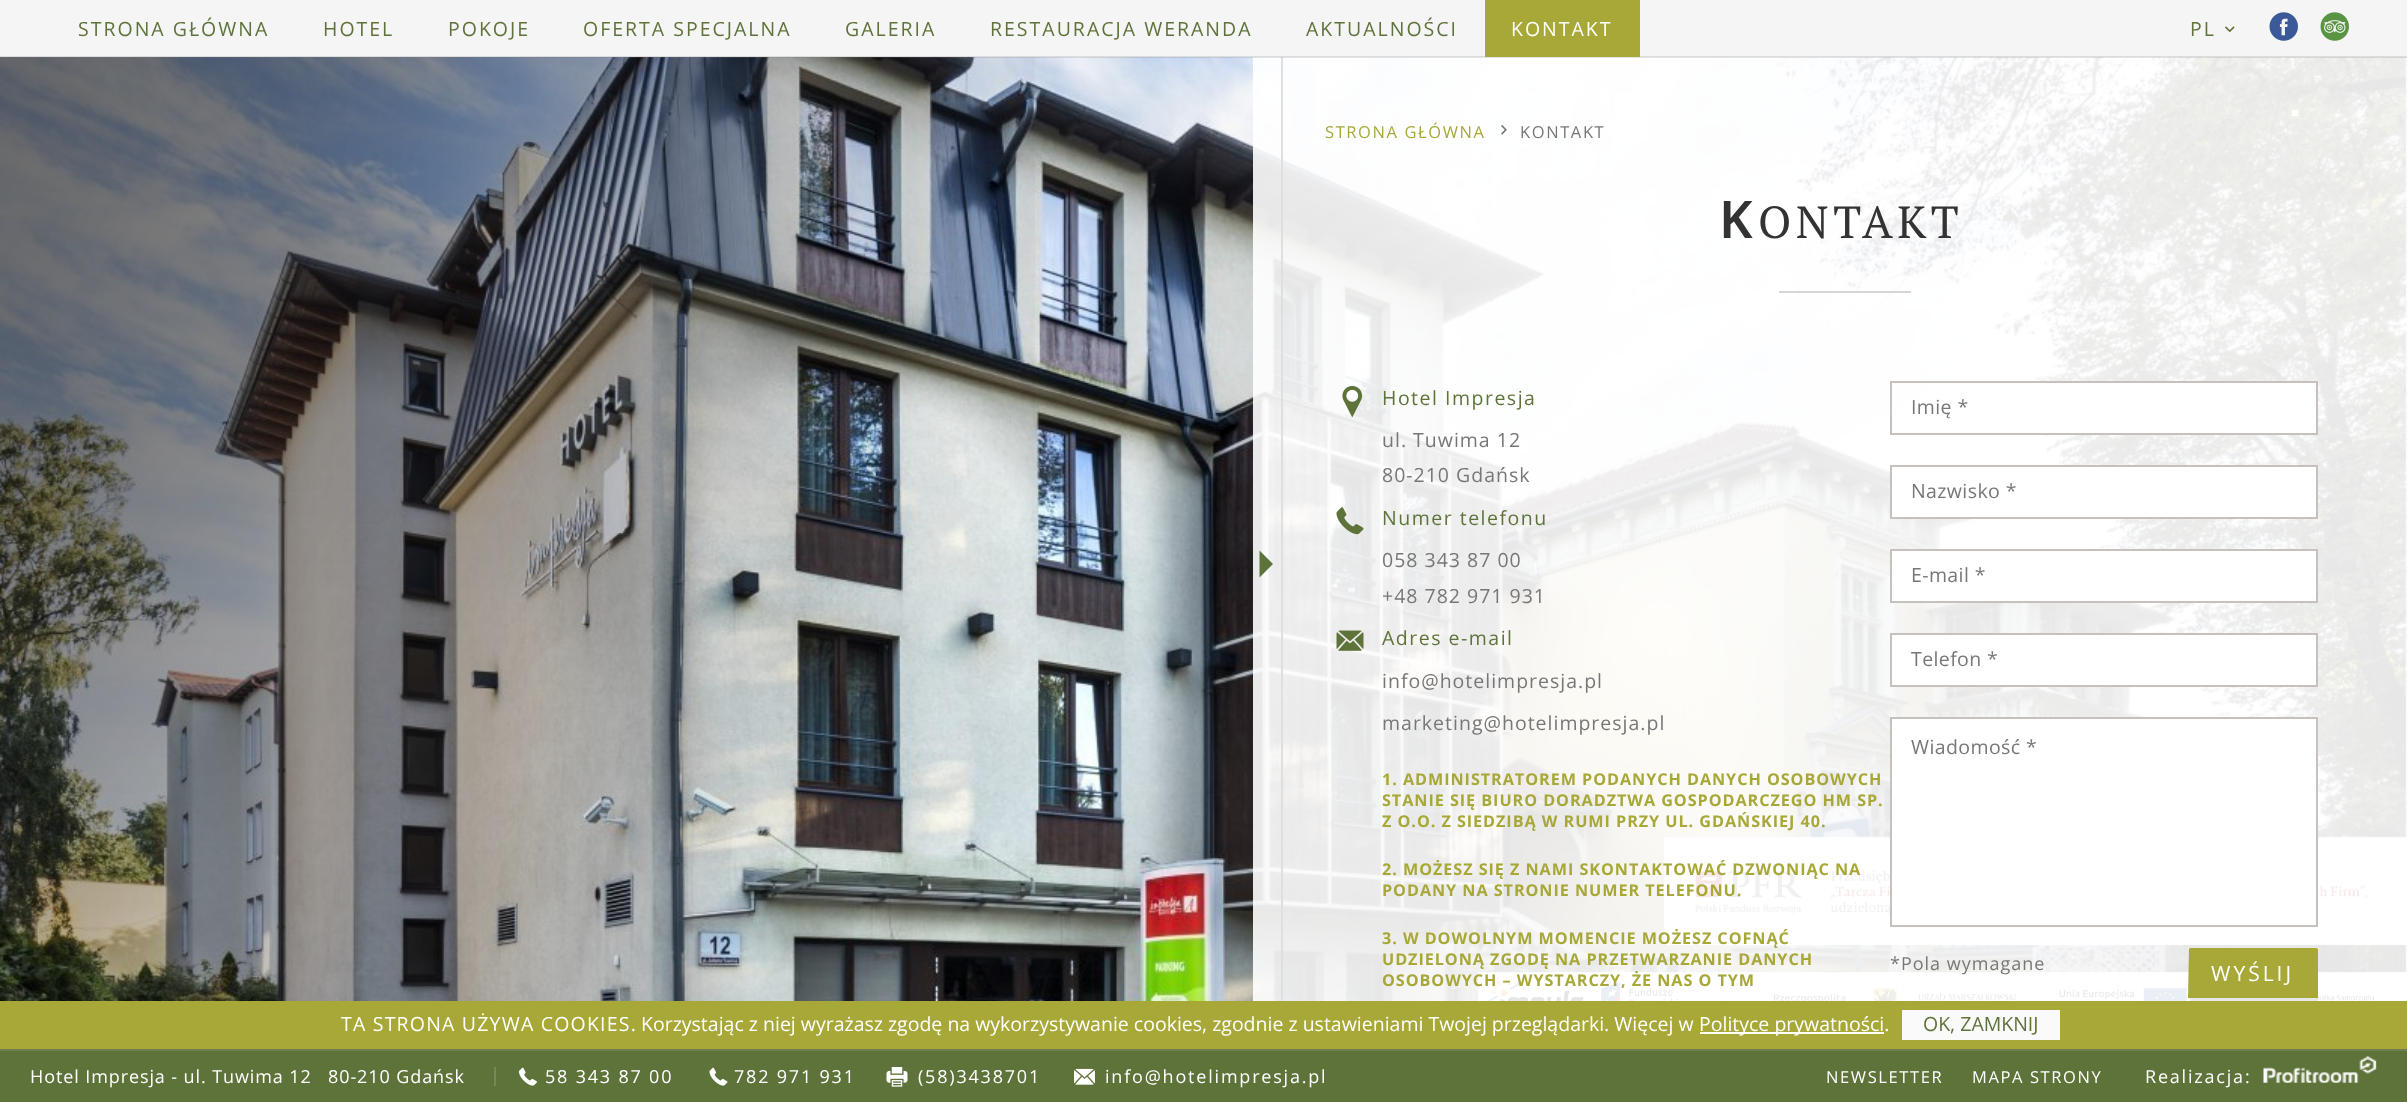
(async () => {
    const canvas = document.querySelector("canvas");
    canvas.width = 2407;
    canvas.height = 1102;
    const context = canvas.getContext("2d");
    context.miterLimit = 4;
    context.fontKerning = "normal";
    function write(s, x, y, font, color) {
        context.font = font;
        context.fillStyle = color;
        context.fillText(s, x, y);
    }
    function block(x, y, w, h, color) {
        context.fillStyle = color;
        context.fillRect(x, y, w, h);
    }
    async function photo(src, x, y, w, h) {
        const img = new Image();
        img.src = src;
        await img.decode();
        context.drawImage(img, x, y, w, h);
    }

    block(0, 0, 2407, 1102, "rgb(255, 255, 255)");
    block(0, 0, 2407, 57, "rgb(245, 245, 245)");
    await photo("media/4.png", 0, 57, 2407, 944);
    await photo("media/5.png", 0, 57, 1035, 944);
    context.fillStyle = "rgb(255, 255, 255)";
    context.beginPath();
    context.rect(2290.5, 108.5, 9, 9);
    context.fill();
    context.strokeStyle = "rgb(94, 115, 58)";
    context.lineWidth = 3;
    context.stroke();
    block(2316, 107, 12, 12, "rgba(94, 115, 58, 0.55)");
    block(2343, 107, 12, 12, "rgba(94, 115, 58, 0.55)");
    await photo("media/6.png", 1664, 836, 743, 110);
    await photo("media/7.png", 1478, 971, 929, 30);
    block(1283, 57, 1124, 944, "rgba(255, 255, 255, 0.9)");
    block(1253, 57, 28, 944, "rgba(255, 255, 255, 0.9)");
    block(1281, 57, 2, 944, "rgb(223, 223, 223)");
    block(0, 56, 2407, 2, "rgba(119, 119, 119, 0.2)");
    context.letterSpacing = "2px";
    write("STRONA GŁÓWNA", 78, 36, "19.5px Open Sans", "rgb(94, 115, 58)");
    write("HOTEL", 323, 36, "19.5px Open Sans", "rgb(94, 115, 58)");
    write("POKOJE", 448, 36, "19.5px Open Sans", "rgb(94, 115, 58)");
    write("OFERTA SPECJALNA", 583, 36, "19.5px Open Sans", "rgb(94, 115, 58)");
    write("GALERIA", 845, 36, "19.5px Open Sans", "rgb(94, 115, 58)");
    write("RESTAURACJA WERANDA", 990, 36, "19.5px Open Sans", "rgb(94, 115, 58)");
    write("AKTUALNOŚCI", 1306, 36, "19.5px Open Sans", "rgb(94, 115, 58)");
    block(1485, 0, 155, 57, "rgb(167, 168, 56)");
    write("KONTAKT", 1511, 36, "19.5px Open Sans", "rgb(255, 255, 255)");
    write("PL", 2190, 36, "19.5px Open Sans", "rgb(94, 115, 58)");
    await photo("media/1.png", 2225, 26, 10, 7);
    await photo("media/2.png", 2269, 12, 29, 29);
    await photo("media/3.png", 2320, 12, 29, 29);
    context.beginPath();
    context.moveTo(1259.5, 577.5);
    context.lineTo(1259.5, 550.5);
    context.lineTo(1273, 564);
    context.closePath();
    context.fill();
    context.letterSpacing = "1.6px";
    write("STRONA GŁÓWNA", 1325, 138, "16.5px Open Sans", "rgb(167, 168, 56)");
    await photo("media/8.png", 1501, 125, 6, 10);
    write("KONTAKT", 1520, 138, "16.5px Open Sans", "rgb(119, 119, 119)");
    context.letterSpacing = "4.5px";
    write("K", 1719, 238, "600 52px Noto Sans", "rgb(51, 51, 51)");
    write("ONTAKT", 1758, 238, "45px PT Serif", "rgb(51, 51, 51)");
    block(1779, 291, 132, 2, "rgba(119, 119, 119, 0.3)");
    await photo("media/9.png", 1342, 386, 21, 32);
    context.letterSpacing = "1.5px";
    write("Hotel Impresja", 1382, 405, "19.5px Open Sans", "rgb(94, 115, 58)");
    context.letterSpacing = "1px";
    write("ul. Tuwima 12", 1382, 447, "19.5px Open Sans", "rgb(119, 119, 119)");
    write("80-210 Gdańsk", 1382, 482, "19.5px Open Sans", "rgb(119, 119, 119)");
    await photo("media/10.png", 1336, 507, 28, 28);
    context.letterSpacing = "1.5px";
    write("Numer telefonu", 1382, 525, "19.5px Open Sans", "rgb(94, 115, 58)");
    context.letterSpacing = "1px";
    write("058 343 87 00", 1382, 567, "19.5px Open Sans", "rgb(119, 119, 119)");
    write("+48 782 971 931", 1382, 603, "19.5px Open Sans", "rgb(119, 119, 119)");
    await photo("media/11.png", 1336, 630, 28, 21);
    context.letterSpacing = "1.5px";
    write("Adres e-mail", 1382, 645, "19.5px Open Sans", "rgb(94, 115, 58)");
    context.letterSpacing = "1px";
    write("info@hotelimpresja.pl", 1382, 688, "19.5px Open Sans", "rgb(119, 119, 119)");
    write("marketing@hotelimpresja.pl", 1382, 730, "19.5px Open Sans", "rgb(119, 119, 119)");
    context.letterSpacing = "0.95px";
    write("1. ADMINISTRATOREM PODANYCH DANYCH OSOBOWYCH", 1382, 785, "bold 16.2px Open Sans", "rgb(167, 168, 56)");
    write("STANIE SIĘ BIURO DORADZTWA GOSPODARCZEGO HM SP.", 1382, 806, "bold 16.2px Open Sans", "rgb(167, 168, 56)");
    write("Z O.O. Z SIEDZIBĄ W RUMI PRZY UL. GDAŃSKIEJ 40.", 1382, 827, "bold 16.2px Open Sans", "rgb(167, 168, 56)");
    write("2. MOŻESZ SIĘ Z NAMI SKONTAKTOWAĆ DZWONIĄC NA", 1382, 875, "bold 16.2px Open Sans", "rgb(167, 168, 56)");
    write("PODANY NA STRONIE NUMER TELEFONU.", 1382, 896, "bold 16.2px Open Sans", "rgb(167, 168, 56)");
    write("3. W DOWOLNYM MOMENCIE MOŻESZ COFNĄĆ", 1382, 944, "bold 16.2px Open Sans", "rgb(167, 168, 56)");
    write("UDZIELONĄ ZGODĘ NA PRZETWARZANIE DANYCH", 1382, 965, "bold 16.2px Open Sans", "rgb(167, 168, 56)");
    write("OSOBOWYCH – WYSTARCZY, ŻE NAS O TYM", 1382, 986, "bold 16.2px Open Sans", "rgb(167, 168, 56)");
    block(2019, 383, 297, 50, "rgb(255, 255, 255)");
    context.strokeStyle = "rgb(198, 193, 189)";
    context.lineWidth = 2;
    context.strokeRect(1891, 382, 426, 52);
    context.letterSpacing = "0.4px";
    write("Imię *", 1911, 414, "19.5px Open Sans", "rgb(119, 119, 119)");
    context.fillStyle = "rgb(255, 255, 255)";
    context.beginPath();
    context.rect(1891, 466, 426, 52);
    context.fill();
    context.stroke();
    write("Nazwisko *", 1911, 498, "19.5px Open Sans", "rgb(119, 119, 119)");
    context.fillStyle = "rgb(255, 255, 255)";
    context.beginPath();
    context.rect(1891, 550, 426, 52);
    context.fill();
    context.stroke();
    write("E-mail *", 1911, 582, "19.5px Open Sans", "rgb(119, 119, 119)");
    context.fillStyle = "rgb(255, 255, 255)";
    context.beginPath();
    context.rect(1891, 634, 426, 52);
    context.fill();
    context.stroke();
    write("Telefon *", 1911, 666, "19.5px Open Sans", "rgb(119, 119, 119)");
    block(1892, 719, 424, 197, "rgb(255, 255, 255)");
    context.strokeRect(1891, 718, 426, 208);
    write("Wiadomość *", 1911, 754, "19.5px Open Sans", "rgb(119, 119, 119)");
    context.letterSpacing = "1px";
    write("*Pola wymagane", 1890, 970, "18px Open Sans", "rgb(119, 119, 119)");
    context.fillStyle = "rgb(167, 168, 56)";
    context.beginPath();
    context.moveTo(2190, 948);
    context.lineTo(2316, 948);
    context.bezierCurveTo(2317, 948, 2318, 949, 2318, 950);
    context.lineTo(2318, 998);
    context.lineTo(2188, 998);
    context.lineTo(2189, 949);
    context.closePath();
    context.fill();
    block(2190, 998, 128, 3, "rgb(232, 231, 231)");
    context.letterSpacing = "3px";
    write("WYŚLIJ", 2211, 981, "21px Open Sans", "rgb(255, 255, 255)");
    block(0, 1001, 2407, 48, "rgb(167, 168, 56)");
    context.letterSpacing = "1.2px";
    write("TA STRONA UŻYWA COOKIES.", 341, 1031, "19.5px Open Sans", "rgb(255, 255, 255)");
    context.letterSpacing = "0px";
    write("Korzystając z niej wyrażasz zgodę na wykorzystywanie cookies, zgodnie z ustawieniami Twojej przeglądarki. Więcej w", 641, 1031, "19.5px Open Sans", "rgb(255, 255, 255)");
    block(1700, 1032, 184, 2, "rgb(255, 255, 255)");
    write("Polityce prywatności.", 1699, 1031, "19.5px Open Sans", "rgb(255, 255, 255)");
    block(1902, 1010, 158, 30, "rgb(250, 250, 250)");
    write("OK, ZAMKNIJ", 1923, 1031, "19.5px Open Sans", "rgb(94, 115, 58)");
    block(0, 1051, 2407, 51, "rgb(94, 115, 58)");
    block(0, 1049, 2407, 2, "rgb(109, 128, 77)");
    context.letterSpacing = "0.9px";
    write("Hotel Impresja - ul. Tuwima 12", 30, 1083, "18px Open Sans", "rgb(255, 255, 255)");
    write("80-210 Gdańsk", 328, 1083, "18px Open Sans", "rgb(255, 255, 255)");
    block(494, 1067, 2, 19, "rgb(118, 136, 88)");
    await photo("media/12.png", 519, 1067, 18, 19);
    context.letterSpacing = "1.8px";
    write("58 343 87 00", 545, 1083, "18px Open Sans", "rgb(255, 255, 255)");
    await photo("media/13.png", 709, 1067, 19, 19);
    write("782 971 931", 734, 1083, "18px Open Sans", "rgb(255, 255, 255)");
    await photo("media/14.png", 886, 1067, 22, 20);
    write("(58)3438701", 918, 1083, "18px Open Sans", "rgb(255, 255, 255)");
    await photo("media/15.png", 1074, 1068, 21, 17);
    write("info@hotelimpresja.pl", 1105, 1083, "18px Open Sans", "rgb(255, 255, 255)");
    context.letterSpacing = "1.6px";
    write("NEWSLETTER", 1826, 1083, "16.5px Open Sans", "rgb(255, 255, 255)");
    write("MAPA STRONY", 1972, 1083, "16.5px Open Sans", "rgb(255, 255, 255)");
    context.letterSpacing = "1.8px";
    write("Realizacja:", 2145, 1083, "18px Open Sans", "rgb(255, 255, 255)");
    await photo("media/16.png", 2263, 1056, 114, 27);
})();
